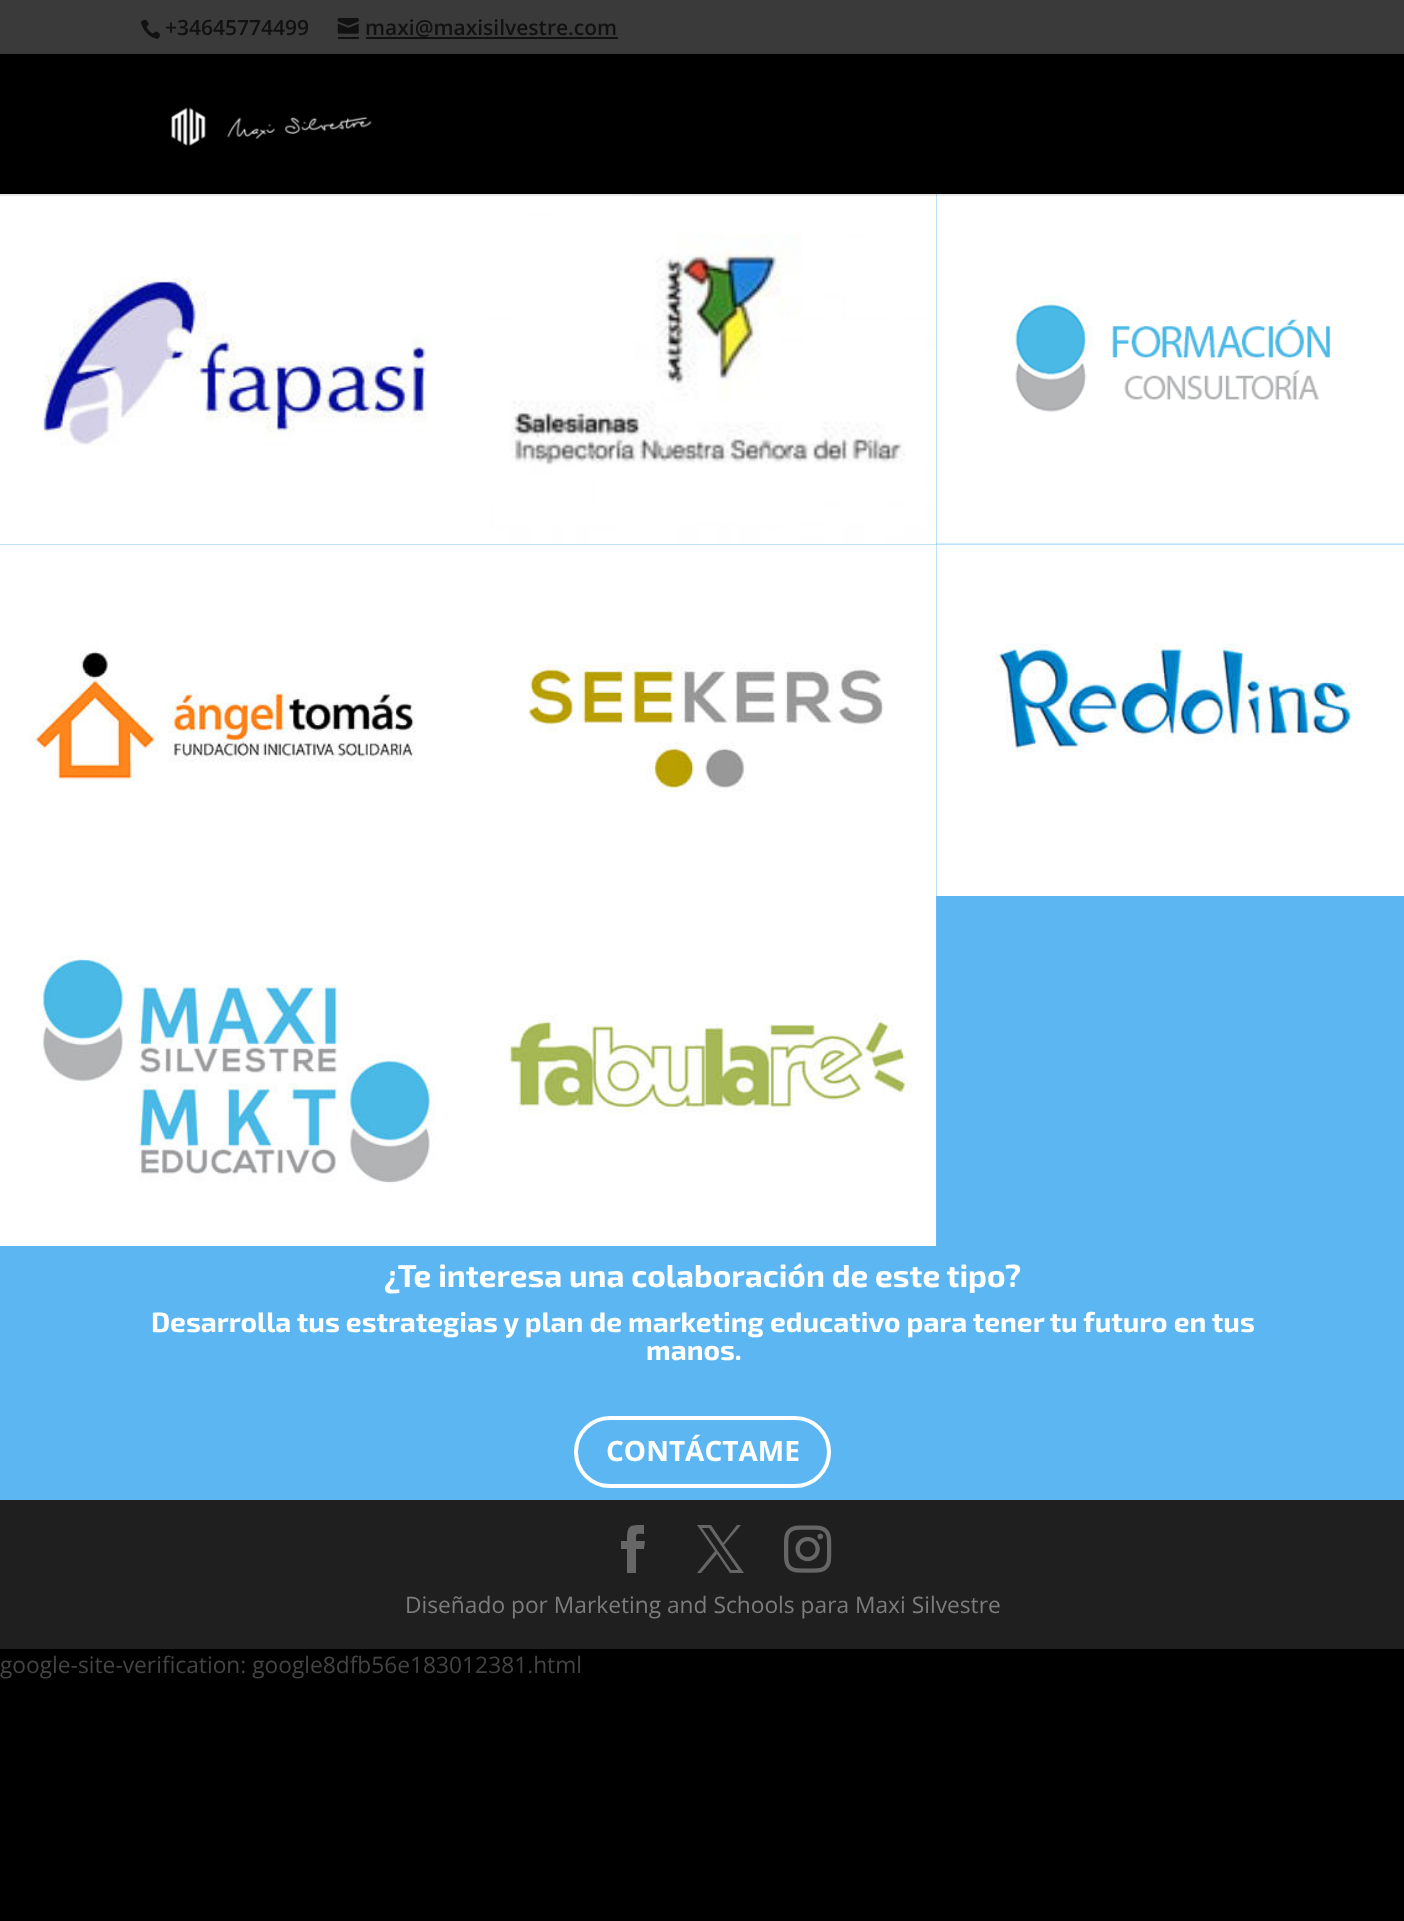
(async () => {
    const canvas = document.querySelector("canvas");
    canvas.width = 1404;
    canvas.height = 1921;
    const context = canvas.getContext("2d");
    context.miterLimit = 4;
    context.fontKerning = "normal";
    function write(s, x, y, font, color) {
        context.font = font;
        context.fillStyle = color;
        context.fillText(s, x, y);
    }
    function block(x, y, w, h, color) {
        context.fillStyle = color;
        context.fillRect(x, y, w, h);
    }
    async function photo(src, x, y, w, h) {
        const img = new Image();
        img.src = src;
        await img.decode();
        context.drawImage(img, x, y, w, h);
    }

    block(0, 0, 1404, 1921, "rgb(0, 0, 0)");
    block(0, 0, 1404, 54, "rgb(58, 58, 58)");
    await photo("media/1.png", 141, 19, 19, 20);
    write("+34645774499", 165, 35, "600 21px Open Sans", "rgb(17, 17, 17)");
    await photo("media/2.png", 337, 18, 22, 16);
    write("maxi@maxisilvestre.com", 365, 35, "600 21px Open Sans", "rgb(17, 17, 17)");
    block(338, 37, 21, 2, "rgb(17, 17, 17)");
    block(366, 37, 252, 2, "rgb(17, 17, 17)");
    block(0, 194, 1404, 1306, "rgb(92, 182, 242)");
    await photo("media/4.png", 0, 194, 469, 351);
    await photo("media/5.png", 469, 194, 468, 351);
    await photo("media/6.png", 936, 194, 468, 351);
    block(0, 194, 1404, 2, "rgba(0, 0, 0, 0.1)");
    await photo("media/3.png", 171, 107, 201, 39);
    await photo("media/7.png", 0, 544, 469, 352);
    await photo("media/8.png", 469, 544, 468, 352);
    await photo("media/9.png", 936, 544, 468, 352);
    await photo("media/10.png", 0, 896, 469, 350);
    await photo("media/11.png", 469, 896, 468, 350);
    write("¿Te interesa una colaboración de este tipo?", 384, 1287, "bold 31.5px 'Exo 2'", "rgb(255, 255, 255)");
    write("Desarrolla tus estrategias y plan de marketing educativo para tener tu futuro en tus", 151, 1332, "bold 28px 'Exo 2'", "rgb(255, 255, 255)");
    write("manos.", 646, 1360, "bold 28px 'Exo 2'", "rgb(255, 255, 255)");
    context.beginPath();
    context.roundRect(576, 1418, 253, 68, 34);
    context.strokeStyle = "rgb(255, 255, 255)";
    context.lineWidth = 4;
    context.stroke();
    write("CONTÁCTAME", 606, 1461, "bold 28px Open Sans", "rgb(255, 255, 255)");
    block(0, 1500, 1404, 149, "rgb(31, 31, 31)");
    context.fillStyle = "rgb(102, 102, 102)";
    context.beginPath();
    context.moveTo(627, 1573);
    context.lineTo(636, 1573);
    context.lineTo(636, 1549);
    context.lineTo(644, 1549);
    context.lineTo(645, 1541);
    context.lineTo(636, 1541);
    context.bezierCurveTo(636, 1532, 636, 1534, 644, 1534);
    context.lineTo(644, 1525);
    context.bezierCurveTo(629, 1525, 627, 1525, 627, 1541);
    context.lineTo(621, 1541);
    context.lineTo(621, 1549);
    context.lineTo(627, 1549);
    context.closePath();
    context.fill();
    context.beginPath();
    context.moveTo(697, 1525);
    context.lineTo(715, 1551);
    context.lineTo(697, 1573);
    context.lineTo(701, 1573);
    context.lineTo(717, 1554);
    context.lineTo(730, 1573);
    context.lineTo(744, 1573);
    context.lineTo(724, 1545);
    context.lineTo(741, 1525);
    context.lineTo(737, 1525);
    context.lineTo(723, 1543);
    context.lineTo(711, 1525);
    context.closePath();
    context.moveTo(702, 1528);
    context.lineTo(709, 1528);
    context.lineTo(738, 1570);
    context.lineTo(731, 1570);
    context.closePath();
    context.fill();
    await photo("media/12.png", 784, 1525, 48, 48);
    write("Diseñado por Marketing and Schools para Maxi Silvestre", 405, 1613, "22.75px Open Sans", "rgb(124, 124, 124)");
    write("google-site-verification: google8dfb56e183012381.html", 0, 1673, "22.75px Open Sans", "rgb(68, 68, 68)");
})();
